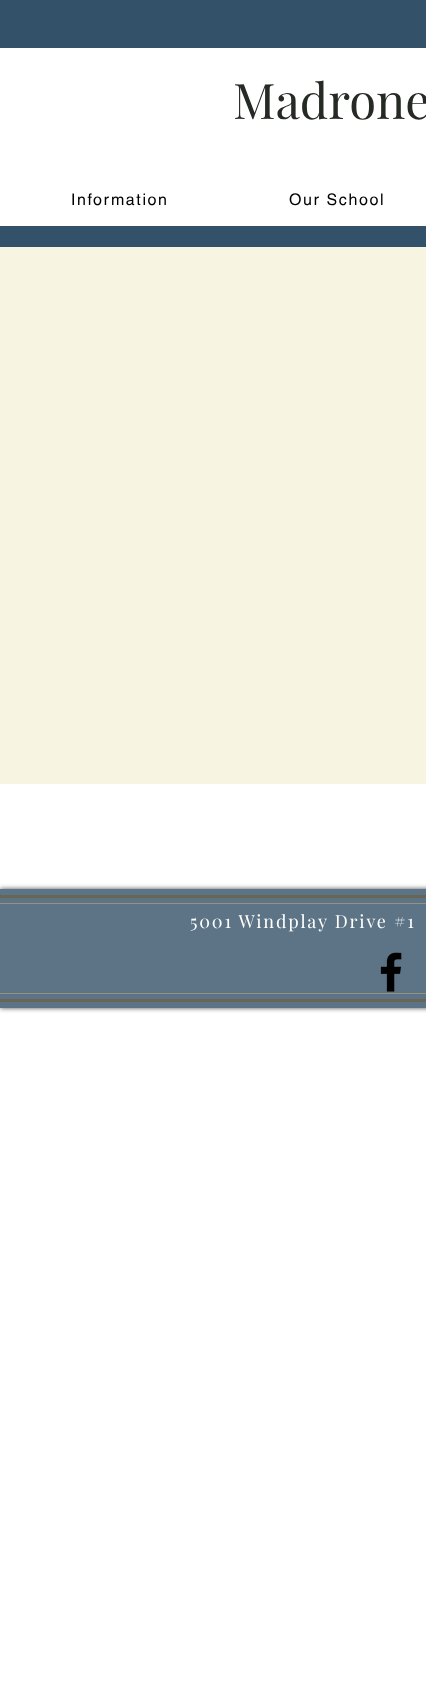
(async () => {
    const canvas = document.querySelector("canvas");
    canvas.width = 426;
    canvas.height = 1701;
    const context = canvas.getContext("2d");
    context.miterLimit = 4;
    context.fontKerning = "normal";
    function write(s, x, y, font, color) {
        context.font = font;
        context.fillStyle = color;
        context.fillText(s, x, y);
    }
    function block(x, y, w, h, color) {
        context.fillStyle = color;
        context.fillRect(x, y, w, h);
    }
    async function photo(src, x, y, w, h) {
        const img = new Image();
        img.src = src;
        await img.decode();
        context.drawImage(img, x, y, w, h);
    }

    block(0, 0, 426, 1701, "rgb(255, 255, 255)");
    block(0, 0, 426, 48, "rgb(51, 81, 104)");
    write("Madrone", 233, 119, "49px Playfair Display", "rgb(38, 42, 36)");
    context.letterSpacing = "1.6px";
    write("Information", 71, 205, "16px helvetica", "rgb(0, 0, 0)");
    write("Our School", 289, 205, "16px helvetica", "rgb(0, 0, 0)");
    block(0, 226, 426, 21, "rgb(51, 81, 104)");
    block(0, 247, 426, 537, "rgb(247, 245, 225)");
    context.fillStyle = "rgba(0, 0, 0, 0.7)";
    context.filter = "blur(2.5px)";
    context.beginPath();
    context.rect(0, 889, 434, 119);
    context.fill();
    context.filter = "none";
    block(0, 889, 426, 119, "rgb(92, 116, 134)");
    block(0, 895, 426, 3, "rgb(105, 101, 84)");
    block(0, 999, 426, 3, "rgb(105, 101, 84)");
    block(0, 903, 426, 1, "rgb(151, 145, 125)");
    block(0, 993, 426, 1, "rgb(151, 145, 125)");
    context.letterSpacing = "1.8px";
    write("5001 Windplay Drive #1", 190, 928, "18px Playfair Display", "rgb(255, 255, 255)");
    await photo("media/1.png", 380, 952, 22, 40);
})();
